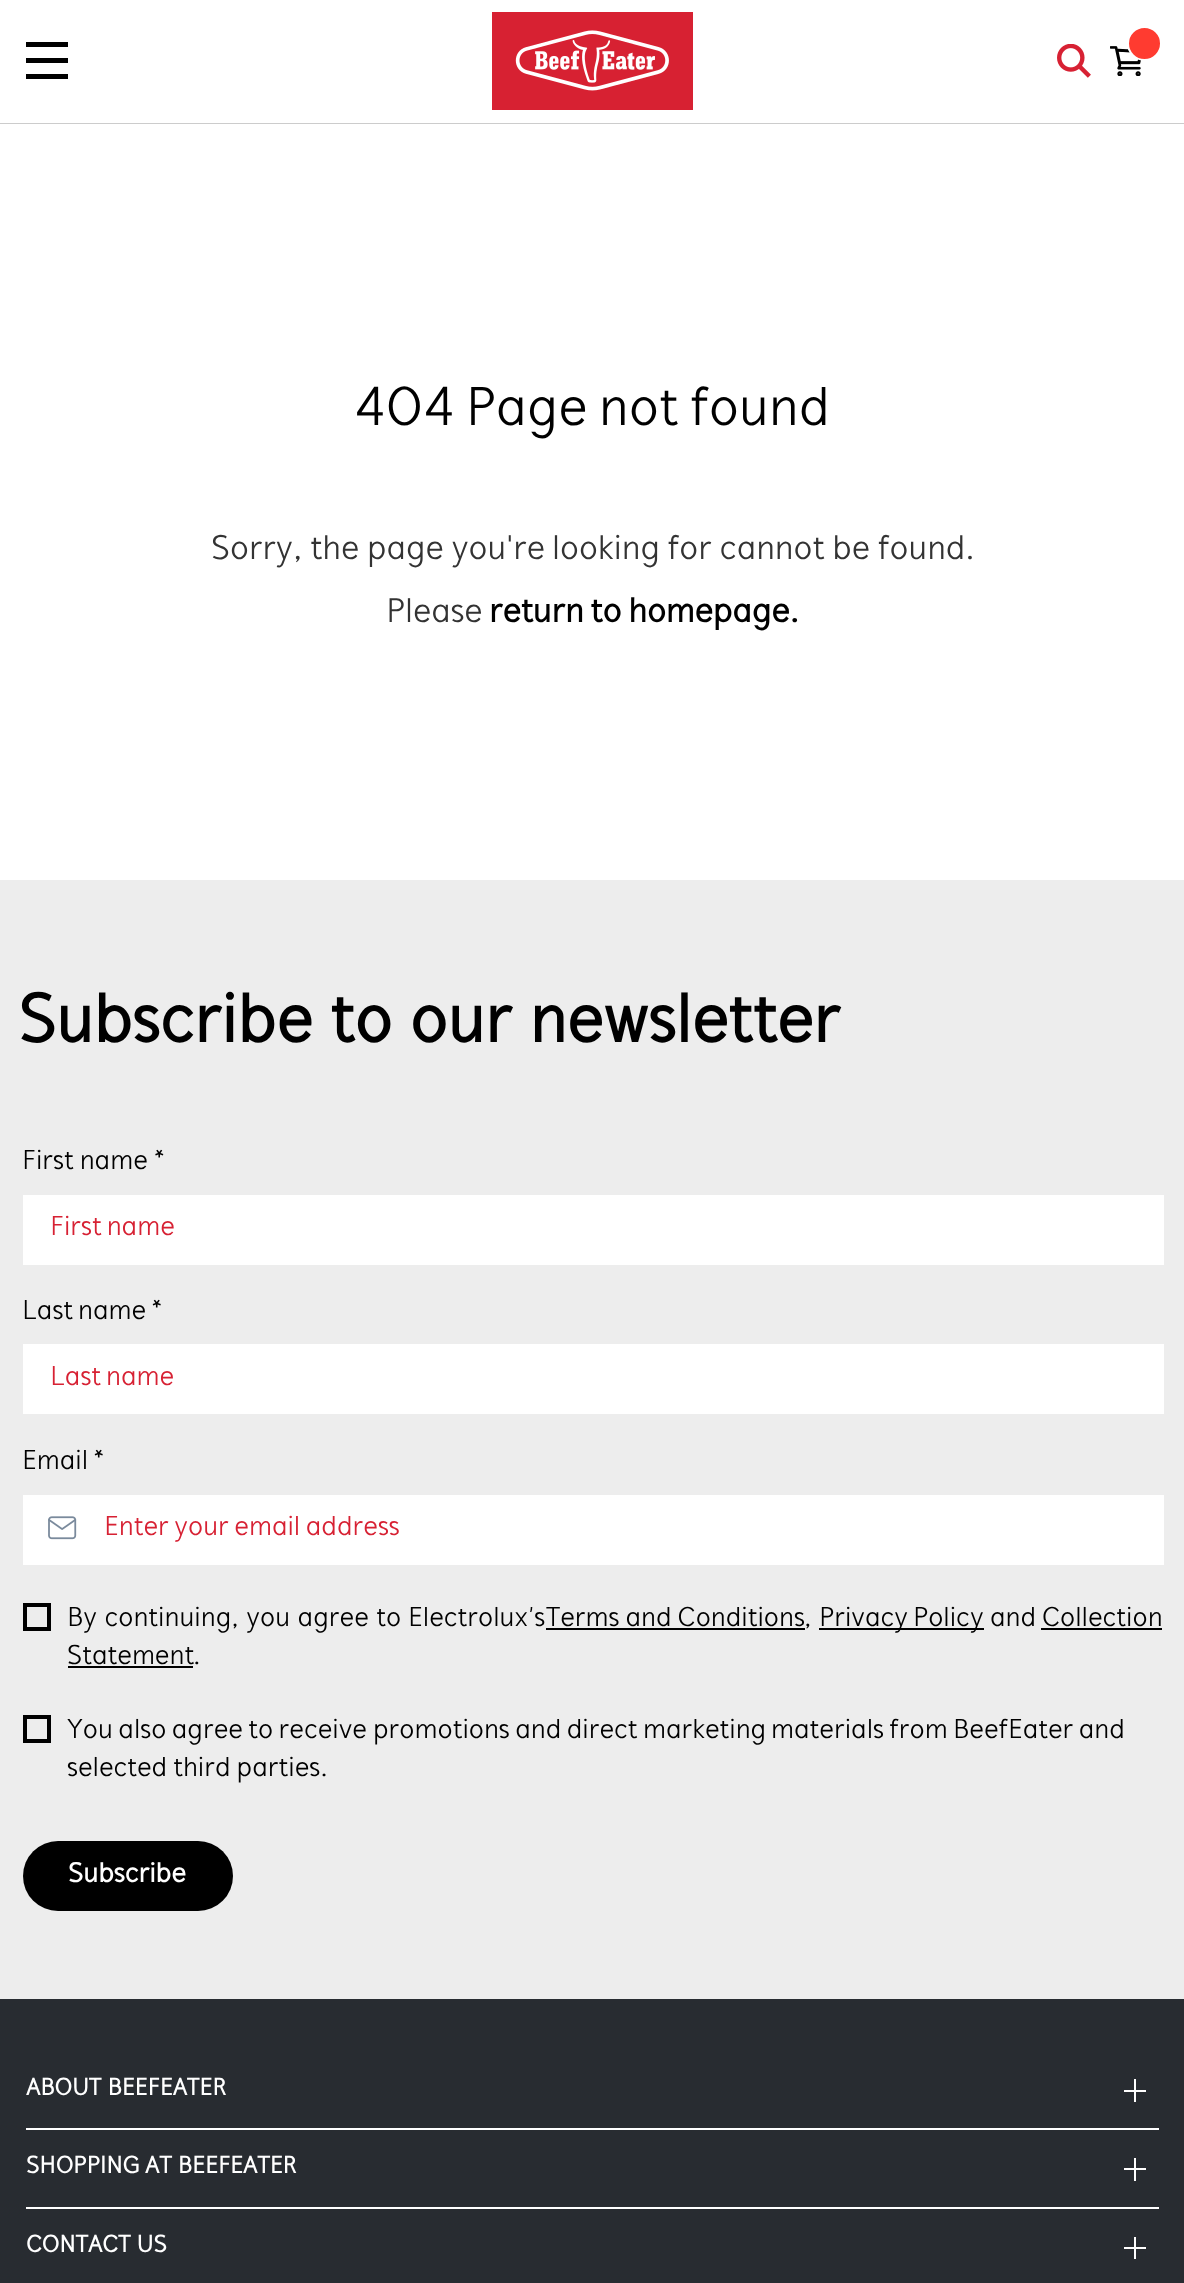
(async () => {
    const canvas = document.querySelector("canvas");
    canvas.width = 1184;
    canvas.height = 2283;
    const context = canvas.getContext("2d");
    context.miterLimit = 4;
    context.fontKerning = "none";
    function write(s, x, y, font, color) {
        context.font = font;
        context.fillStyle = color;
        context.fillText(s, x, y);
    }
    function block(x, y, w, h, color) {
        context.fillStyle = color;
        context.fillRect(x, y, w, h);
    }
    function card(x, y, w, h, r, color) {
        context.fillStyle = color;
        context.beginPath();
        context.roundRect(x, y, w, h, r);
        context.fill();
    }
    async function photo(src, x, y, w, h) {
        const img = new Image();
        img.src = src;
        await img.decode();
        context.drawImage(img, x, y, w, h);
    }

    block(0, 0, 1184, 2283, "rgb(255, 255, 255)");
    context.fillStyle = "rgb(204, 204, 204)";
    context.beginPath();
    context.moveTo(0, 122);
    context.lineTo(0, 124);
    context.lineTo(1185, 124);
    context.lineTo(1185, 2);
    context.lineTo(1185, 122);
    context.closePath();
    context.fill();
    block(0, 122, 1184, 1, "rgb(255, 255, 255)");
    block(26, 74, 42, 5, "rgb(0, 0, 0)");
    block(26, 58, 42, 5, "rgb(0, 0, 0)");
    block(26, 42, 42, 5, "rgb(0, 0, 0)");
    await photo("media/1.png", 492, 12, 201, 98);
    await photo("media/2.png", 1057, 44, 34, 34);
    await photo("media/3.png", 1110, 46, 31, 30);
    context.fillStyle = "rgb(255, 59, 48)";
    context.beginPath();
    context.arc(1144.5, 43.5, 16.5, 0, Math.PI * 2);
    context.fill();
    context.strokeStyle = "rgb(255, 255, 255)";
    context.lineWidth = 2;
    context.stroke();
    context.wordSpacing = "-2.5px";
    write("404 Page not found", 355, 425, "56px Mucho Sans", "rgb(0, 0, 0)");
    context.wordSpacing = "-1px";
    write("Sorry, the page you're", 211, 559, "35px Mucho Sans", "rgb(51, 51, 51)");
    write("looking for cannot be found.", 552, 559, "35px Mucho Sans", "rgb(51, 51, 51)");
    context.wordSpacing = "0px";
    write("Please", 386, 622, "35px Mucho Sans", "rgb(51, 51, 51)");
    context.wordSpacing = "-2px";
    write("return to homepage.", 489, 622, "bold 35px Mucho Sans", "rgb(0, 0, 0)");
    block(0, 880, 1184, 1119, "rgb(237, 237, 237)");
    context.wordSpacing = "0px";
    write("Subscribe to our newsletter", 18, 1042, "bold 70px Mucho Sans", "rgb(0, 0, 0)");
    context.wordSpacing = "-1px";
    write("First name *", 22, 1169, "28px Mucho Sans", "rgb(0, 0, 0)");
    block(23, 1195, 1141, 70, "rgb(255, 255, 255)");
    context.wordSpacing = "-2px";
    write("First name", 50, 1235, "28px Mucho Sans", "rgb(215, 33, 51)");
    write("Last name *", 22, 1319, "28px Mucho Sans", "rgb(0, 0, 0)");
    block(23, 1344, 1141, 70, "rgb(255, 255, 255)");
    write("Last name", 50, 1385, "28px Mucho Sans", "rgb(215, 33, 51)");
    write("Email *", 22, 1469, "28px Mucho Sans", "rgb(0, 0, 0)");
    block(23, 1495, 1141, 70, "rgb(255, 255, 255)");
    await photo("media/4.png", 48, 1516, 29, 24);
    context.wordSpacing = "-1.5px";
    write("Enter your email address", 104, 1535, "28px Mucho Sans", "rgb(215, 33, 51)");
    context.strokeStyle = "rgb(0, 0, 0)";
    context.lineWidth = 4;
    context.strokeRect(25, 1605, 24, 24);
    context.wordSpacing = "0.5px";
    write("By continuing, you agree to", 67, 1626, "28px Mucho Sans", "rgb(0, 0, 0)");
    write("Electrolux’s", 408, 1626, "28px Mucho Sans", "rgb(0, 0, 0)");
    context.wordSpacing = "-1px";
    write("Terms and Conditions", 546, 1626, "28px Mucho Sans", "rgb(0, 0, 0)");
    context.wordSpacing = "0px";
    write(",", 804, 1626, "28px Mucho Sans", "rgb(0, 0, 0)");
    block(546, 1628, 259, 2, "rgb(0, 0, 0)");
    block(819, 1628, 165, 2, "rgb(0, 0, 0)");
    context.wordSpacing = "-2px";
    write("Privacy Policy", 819, 1626, "28px Mucho Sans", "rgb(0, 0, 0)");
    context.wordSpacing = "0px";
    write("and", 990, 1626, "28px Mucho Sans", "rgb(0, 0, 0)");
    write("Collection", 1042, 1626, "28px Mucho Sans", "rgb(0, 0, 0)");
    block(1041, 1628, 121, 2, "rgb(0, 0, 0)");
    write("Statement", 67, 1664, "28px Mucho Sans", "rgb(0, 0, 0)");
    write(".", 193, 1664, "28px Mucho Sans", "rgb(0, 0, 0)");
    block(68, 1666, 125, 2, "rgb(0, 0, 0)");
    context.strokeRect(25, 1717, 24, 24);
    context.wordSpacing = "-1.6px";
    write("You also agree to receive", 67, 1738, "28px Mucho Sans", "rgb(0, 0, 0)");
    write("promotions and direct marketing", 373, 1738, "28px Mucho Sans", "rgb(0, 0, 0)");
    write("materials from BeefEater and", 771, 1738, "28px Mucho Sans", "rgb(0, 0, 0)");
    context.wordSpacing = "-1px";
    write("selected third parties.", 67, 1776, "28px Mucho Sans", "rgb(0, 0, 0)");
    card(23, 1841, 210, 70, 35, "rgb(0, 0, 0)");
    context.wordSpacing = "0px";
    write("Subscribe", 68, 1882, "bold 28px Mucho Sans", "rgb(255, 255, 255)");
    block(0, 1999, 1184, 284, "rgb(40, 44, 49)");
    block(26, 2128, 1133, 2, "rgb(255, 255, 255)");
    write("ABOUT BEEFEATER", 26, 2095, "bold 24.5px Mucho Sans", "rgb(255, 255, 255)");
    block(1124, 2090, 22, 2, "rgb(255, 255, 255)");
    block(1134, 2079, 2, 23, "rgb(255, 255, 255)");
    block(26, 2207, 1133, 2, "rgb(255, 255, 255)");
    write("SHOPPING AT BEEFEATER", 26, 2173, "bold 24.5px Mucho Sans", "rgb(255, 255, 255)");
    block(1124, 2168, 22, 2, "rgb(255, 255, 255)");
    block(1134, 2158, 2, 23, "rgb(255, 255, 255)");
    write("CONTACT US", 26, 2252, "bold 24.5px Mucho Sans", "rgb(255, 255, 255)");
    block(1124, 2247, 22, 2, "rgb(255, 255, 255)");
    block(1134, 2237, 2, 22, "rgb(255, 255, 255)");
})();
